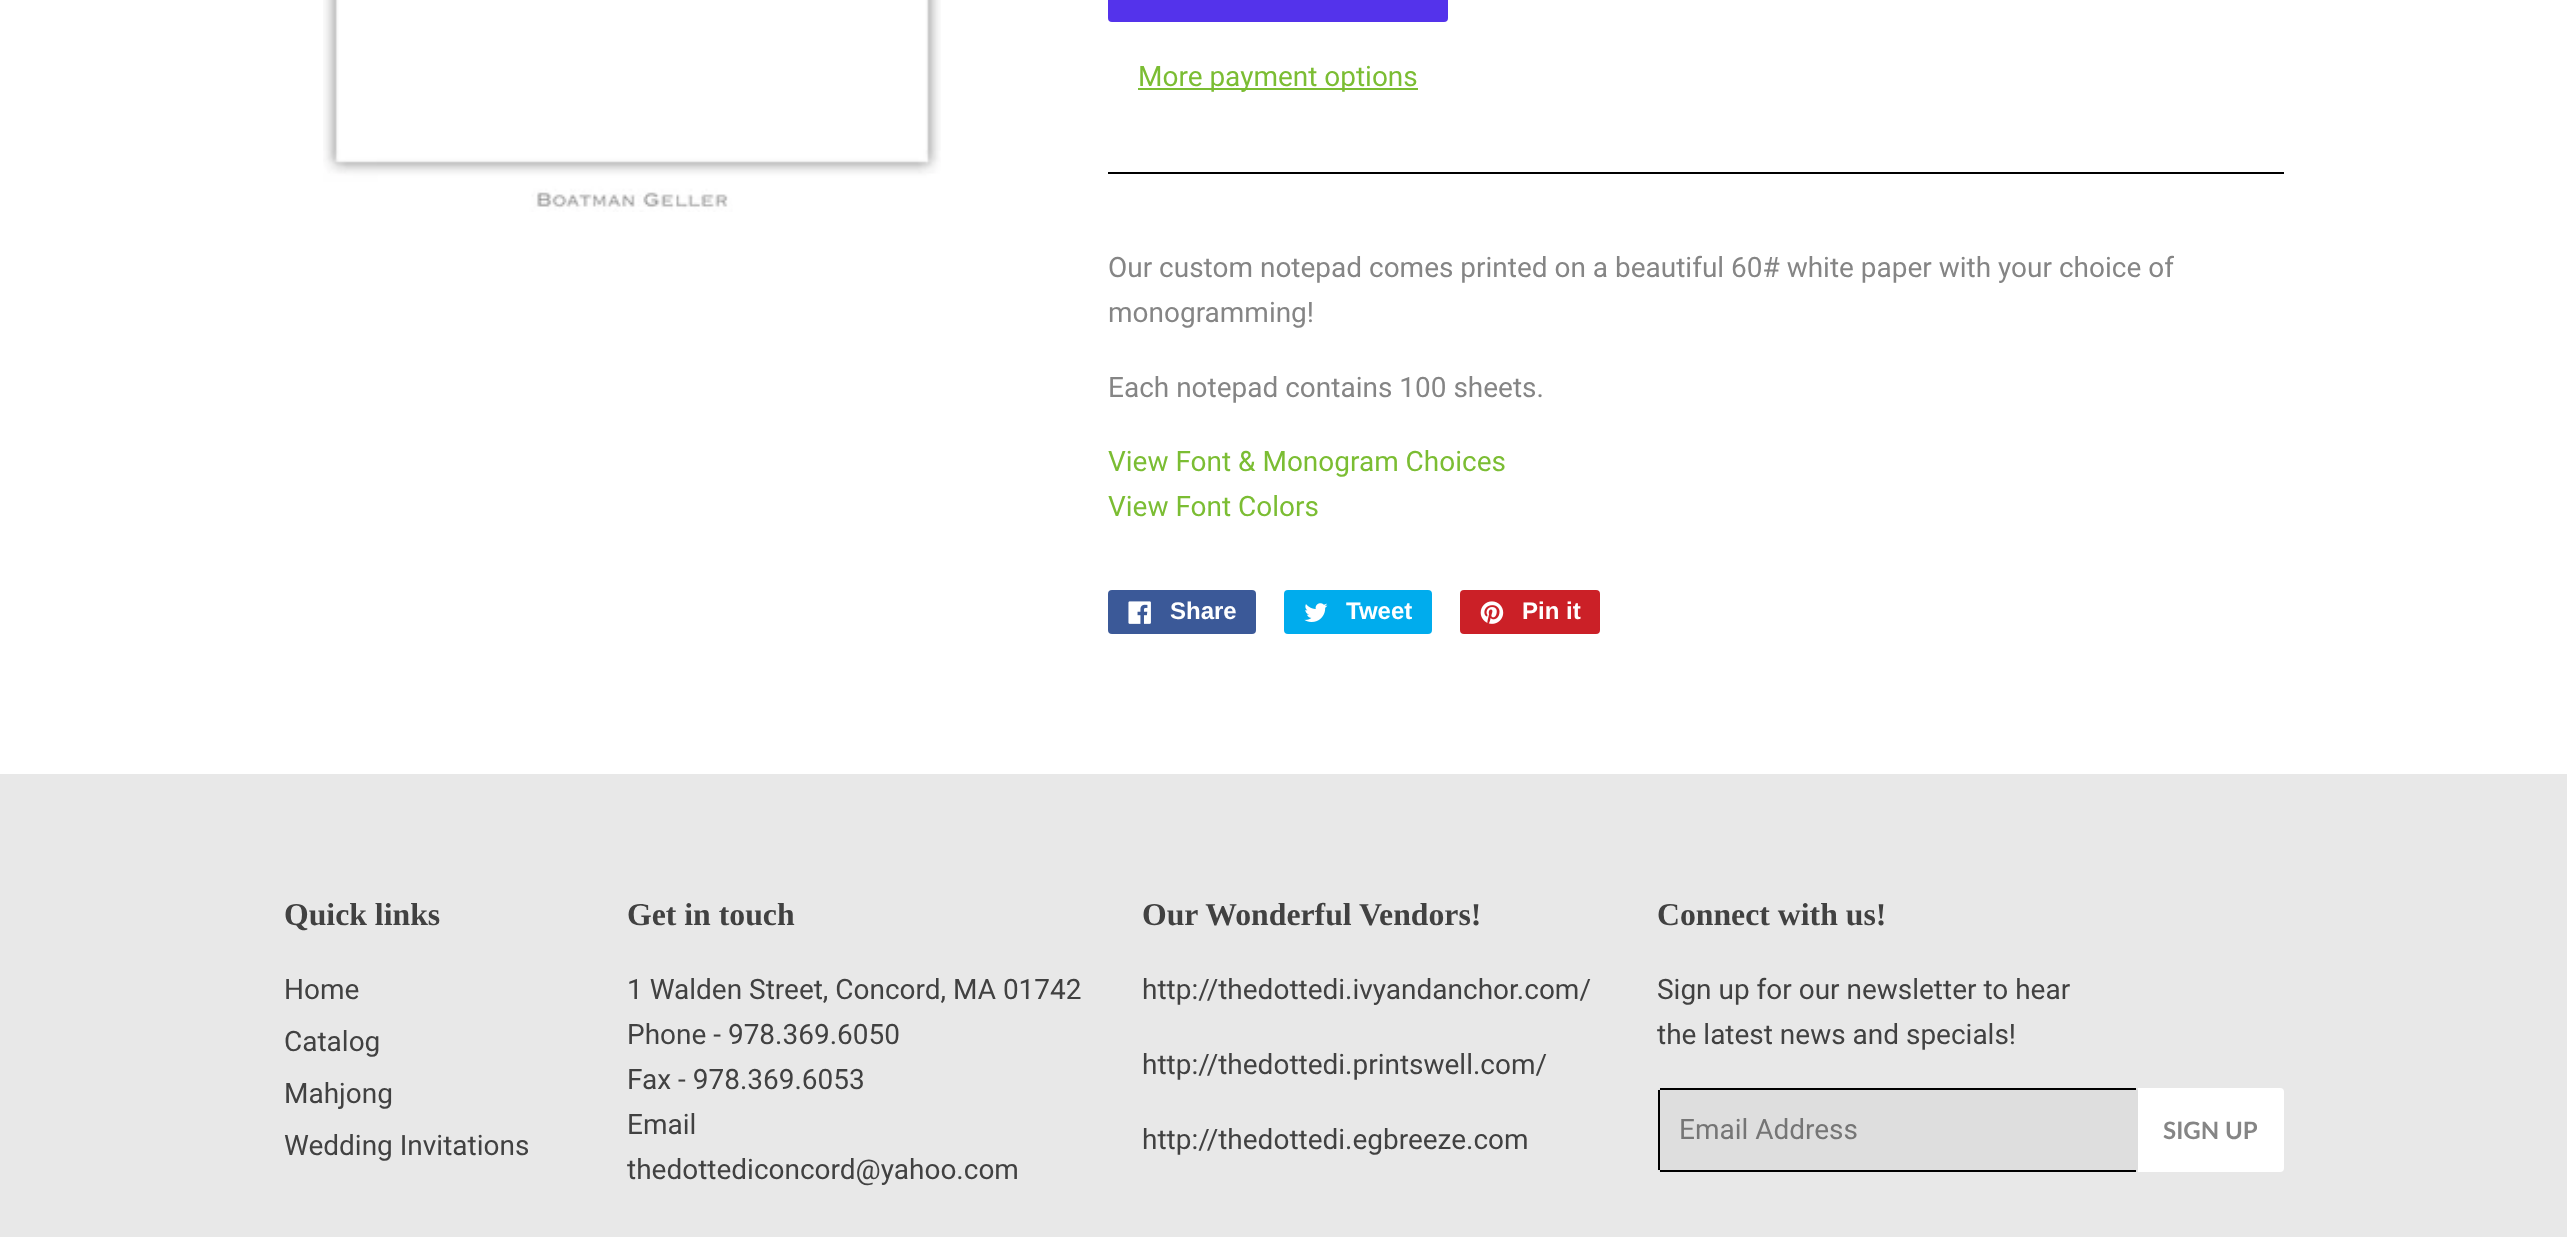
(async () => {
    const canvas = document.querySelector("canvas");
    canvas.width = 2567;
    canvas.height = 1237;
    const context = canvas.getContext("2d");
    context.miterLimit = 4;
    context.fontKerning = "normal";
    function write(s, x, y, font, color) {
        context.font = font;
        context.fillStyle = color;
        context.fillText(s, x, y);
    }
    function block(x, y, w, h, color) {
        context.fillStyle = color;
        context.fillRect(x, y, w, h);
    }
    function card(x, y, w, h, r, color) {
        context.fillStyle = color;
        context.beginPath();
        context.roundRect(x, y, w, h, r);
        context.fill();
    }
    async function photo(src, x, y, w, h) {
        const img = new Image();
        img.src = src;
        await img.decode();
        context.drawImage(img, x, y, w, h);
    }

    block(0, 0, 2567, 1237, "rgb(255, 255, 255)");
    await photo("media/1.png", 323, 0, 618, 212);
    card(1108, -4, 340, 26, 4, "rgb(84, 51, 235)");
    block(1138, 88, 280, 2, "rgb(123, 189, 51)");
    write("More payment options", 1138, 86, "28px Roboto", "rgb(123, 189, 51)");
    block(1108, 172, 1176, 2, "rgb(0, 0, 0)");
    write("Our custom notepad comes printed on a beautiful 60# white paper with your choice of", 1108, 277, "28px Roboto", "rgb(133, 133, 133)");
    write("monogramming!", 1108, 322, "28px Roboto", "rgb(133, 133, 133)");
    write("Each notepad contains 100 sheets.", 1108, 397, "28px Roboto", "rgb(133, 133, 133)");
    write("View Font & Monogram Choices", 1108, 471, "28px Roboto", "rgb(123, 189, 51)");
    write("View Font Colors", 1108, 516, "28px Roboto", "rgb(123, 189, 51)");
    card(1108, 590, 148, 44, 4, "rgb(59, 89, 152)");
    await photo("media/2.png", 1128, 601, 23, 23);
    write("Share", 1170, 619, "bold 24px Liberation Sans", "rgb(255, 255, 255)");
    card(1284, 590, 148, 44, 4, "rgb(0, 172, 237)");
    await photo("media/3.png", 1304, 603, 24, 19);
    write("Tweet", 1346, 619, "bold 24px Liberation Sans", "rgb(255, 255, 255)");
    card(1460, 590, 140, 44, 4, "rgb(203, 32, 39)");
    await photo("media/4.png", 1480, 601, 24, 23);
    write("Pin it", 1522, 619, "bold 24px Liberation Sans", "rgb(255, 255, 255)");
    block(0, 774, 2567, 463, "rgb(232, 232, 232)");
    write("Quick links", 284, 925, "bold 31.75px Liberation Serif", "rgb(65, 65, 65)");
    write("Home", 284, 999, "28px Roboto", "rgb(65, 65, 65)");
    write("Catalog", 284, 1051, "28px Roboto", "rgb(65, 65, 65)");
    write("Mahjong", 284, 1103, "28px Roboto", "rgb(65, 65, 65)");
    write("Wedding Invitations", 284, 1155, "28px Roboto", "rgb(65, 65, 65)");
    write("Get in touch", 627, 925, "bold 31.75px Liberation Serif", "rgb(65, 65, 65)");
    write("1 Walden Street, Concord, MA 01742", 627, 999, "28px Roboto", "rgb(65, 65, 65)");
    write("Phone - 978.369.6050", 627, 1044, "28px Roboto", "rgb(65, 65, 65)");
    write("Fax - 978.369.6053", 627, 1089, "28px Roboto", "rgb(65, 65, 65)");
    write("Email", 627, 1134, "28px Roboto", "rgb(65, 65, 65)");
    write("thedottediconcord@yahoo.com", 627, 1179, "28px Roboto", "rgb(65, 65, 65)");
    write("Our Wonderful Vendors!", 1142, 925, "bold 31.75px Liberation Serif", "rgb(65, 65, 65)");
    write("http://thedottedi.ivyandanchor.com/", 1142, 999, "28px Roboto", "rgb(65, 65, 65)");
    write("http://thedottedi.printswell.com/", 1142, 1074, "28px Roboto", "rgb(65, 65, 65)");
    write("http://thedottedi.egbreeze.com", 1142, 1149, "28px Roboto", "rgb(65, 65, 65)");
    write("Connect with us!", 1657, 925, "bold 31.75px Liberation Serif", "rgb(65, 65, 65)");
    write("Sign up for our newsletter to hear", 1657, 999, "28px Roboto", "rgb(65, 65, 65)");
    write("the latest news and specials!", 1657, 1044, "28px Roboto", "rgb(65, 65, 65)");
    card(1658, 1088, 480, 84, 4, "rgb(222, 222, 222)");
    block(1660, 1088, 476, 2, "rgb(0, 0, 0)");
    block(1660, 1170, 476, 2, "rgb(0, 0, 0)");
    block(1658, 1090, 2, 80, "rgb(0, 0, 0)");
    write("Email Address", 1679, 1139, "28px Roboto", "rgb(117, 117, 117)");
    context.fillStyle = "rgb(255, 255, 255)";
    context.beginPath();
    context.roundRect(2138, 1088, 146, 84, [0, 4, 4, 0]);
    context.fill();
    write("SIGN UP", 2163, 1139, "bold 24px Lato", "rgb(133, 133, 133)");
})();
